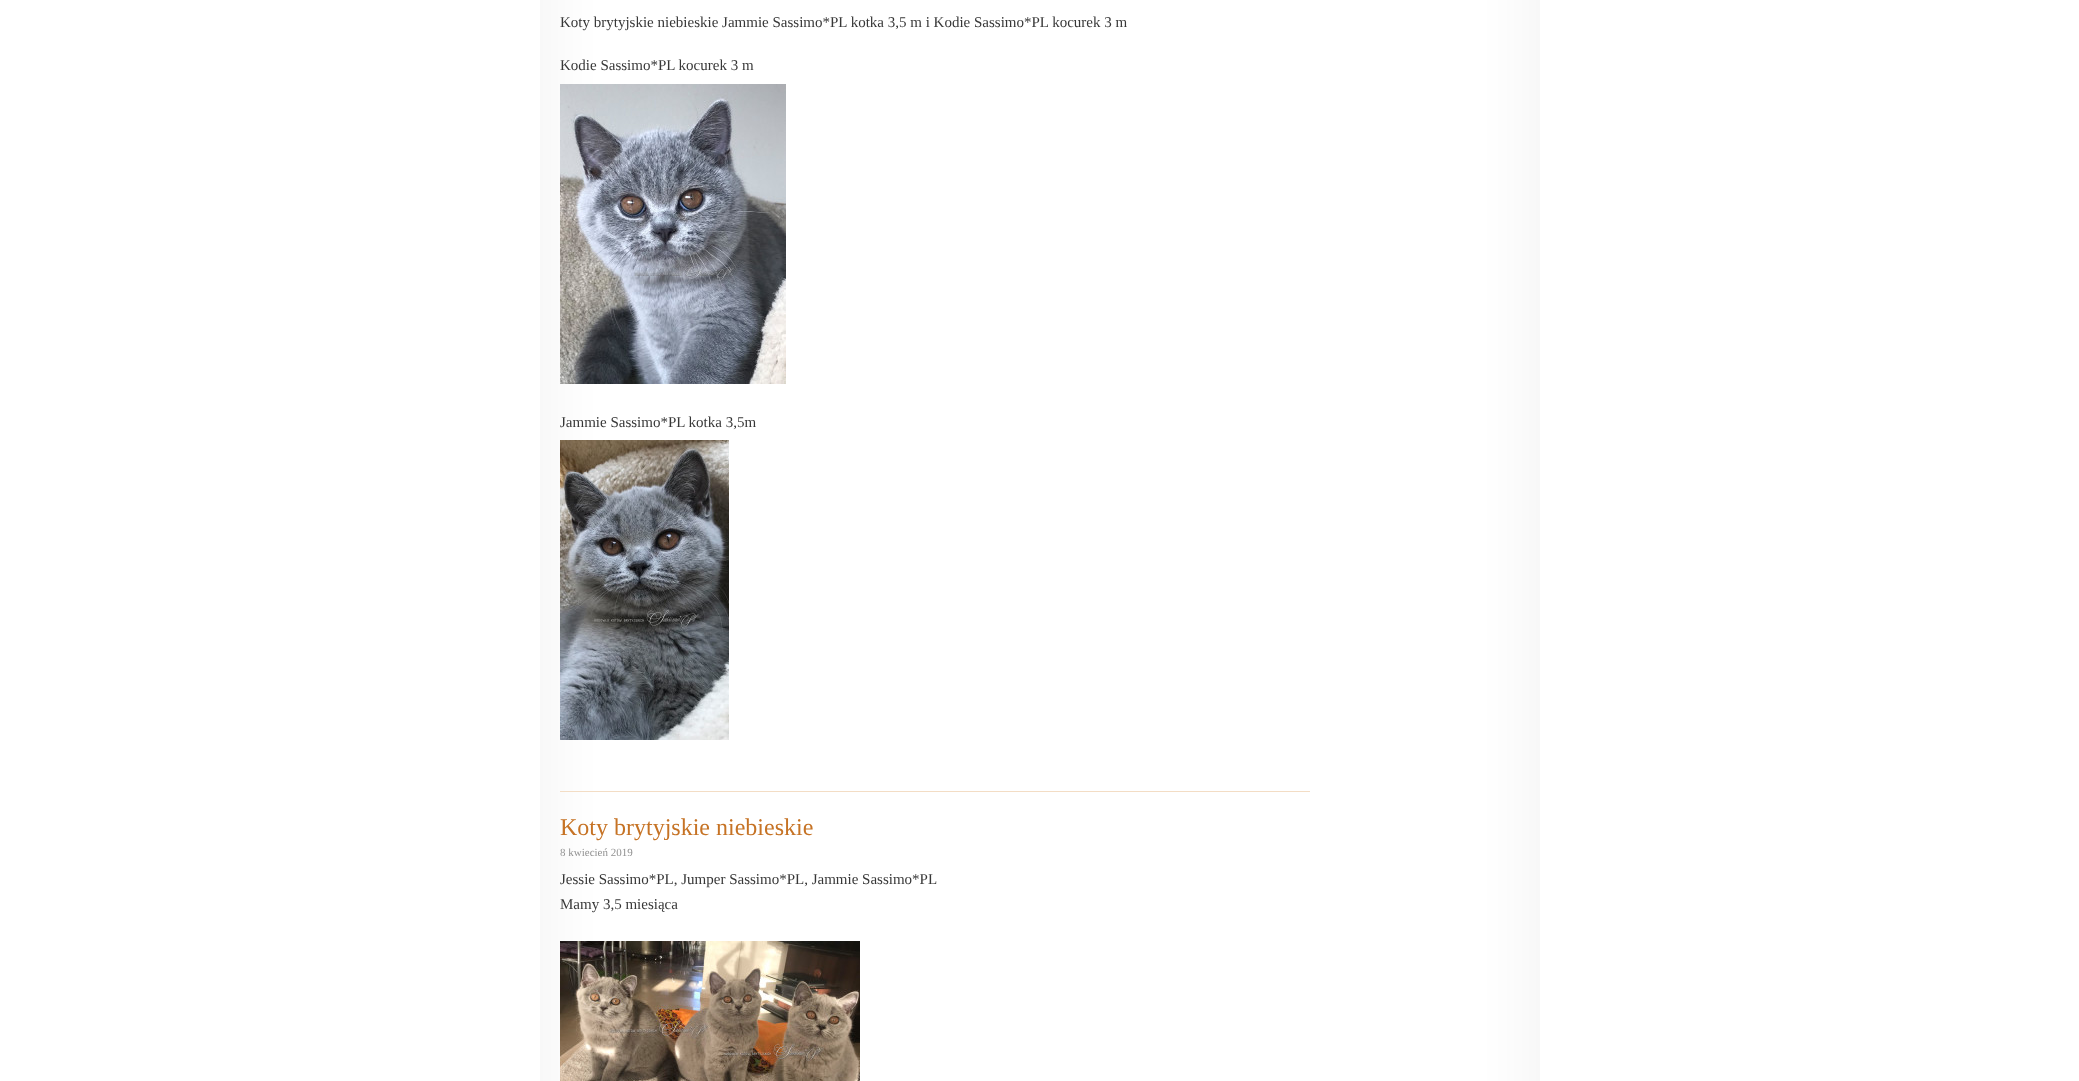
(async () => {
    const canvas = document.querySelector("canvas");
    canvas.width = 2079;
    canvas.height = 1081;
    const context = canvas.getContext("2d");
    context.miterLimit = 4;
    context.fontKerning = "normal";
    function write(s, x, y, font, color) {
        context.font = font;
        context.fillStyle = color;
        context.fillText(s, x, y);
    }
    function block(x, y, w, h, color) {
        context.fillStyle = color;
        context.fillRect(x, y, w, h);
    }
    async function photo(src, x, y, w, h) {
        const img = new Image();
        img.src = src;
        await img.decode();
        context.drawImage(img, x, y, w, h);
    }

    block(0, 0, 2079, 1081, "rgb(255, 255, 255)");
    await photo("media/1.png", 540, 0, 1000, 1081);
    block(560, 791, 750, 1, "rgb(243, 221, 197)");
    write("Koty brytyjskie niebieskie Jammie Sassimo*PL kotka 3,5 m i Kodie Sassimo*PL kocurek 3 m", 560, 27, "15px Liberation Serif", "rgb(55, 55, 55)");
    write("Kodie Sassimo*PL kocurek 3 m", 560, 70, "15px Liberation Serif", "rgb(55, 55, 55)");
    await photo("media/2.png", 560, 84, 226, 300);
    write("Jammie Sassimo*PL kotka 3,5m", 560, 427, "15px Liberation Serif", "rgb(55, 55, 55)");
    await photo("media/3.png", 560, 440, 169, 300);
    write("Koty brytyjskie niebieskie", 560, 835, "24px Liberation Serif", "rgb(198, 115, 37)");
    write("8 kwiecień 2019", 560, 856, "11px Liberation Serif", "rgb(145, 145, 145)");
    write("Jessie Sassimo*PL, Jumper Sassimo*PL, Jammie Sassimo*PL", 560, 884, "15px Liberation Serif", "rgb(55, 55, 55)");
    write("Mamy 3,5 miesiąca", 560, 909, "15px Liberation Serif", "rgb(55, 55, 55)");
    await photo("media/4.png", 560, 941, 300, 140);
})();
